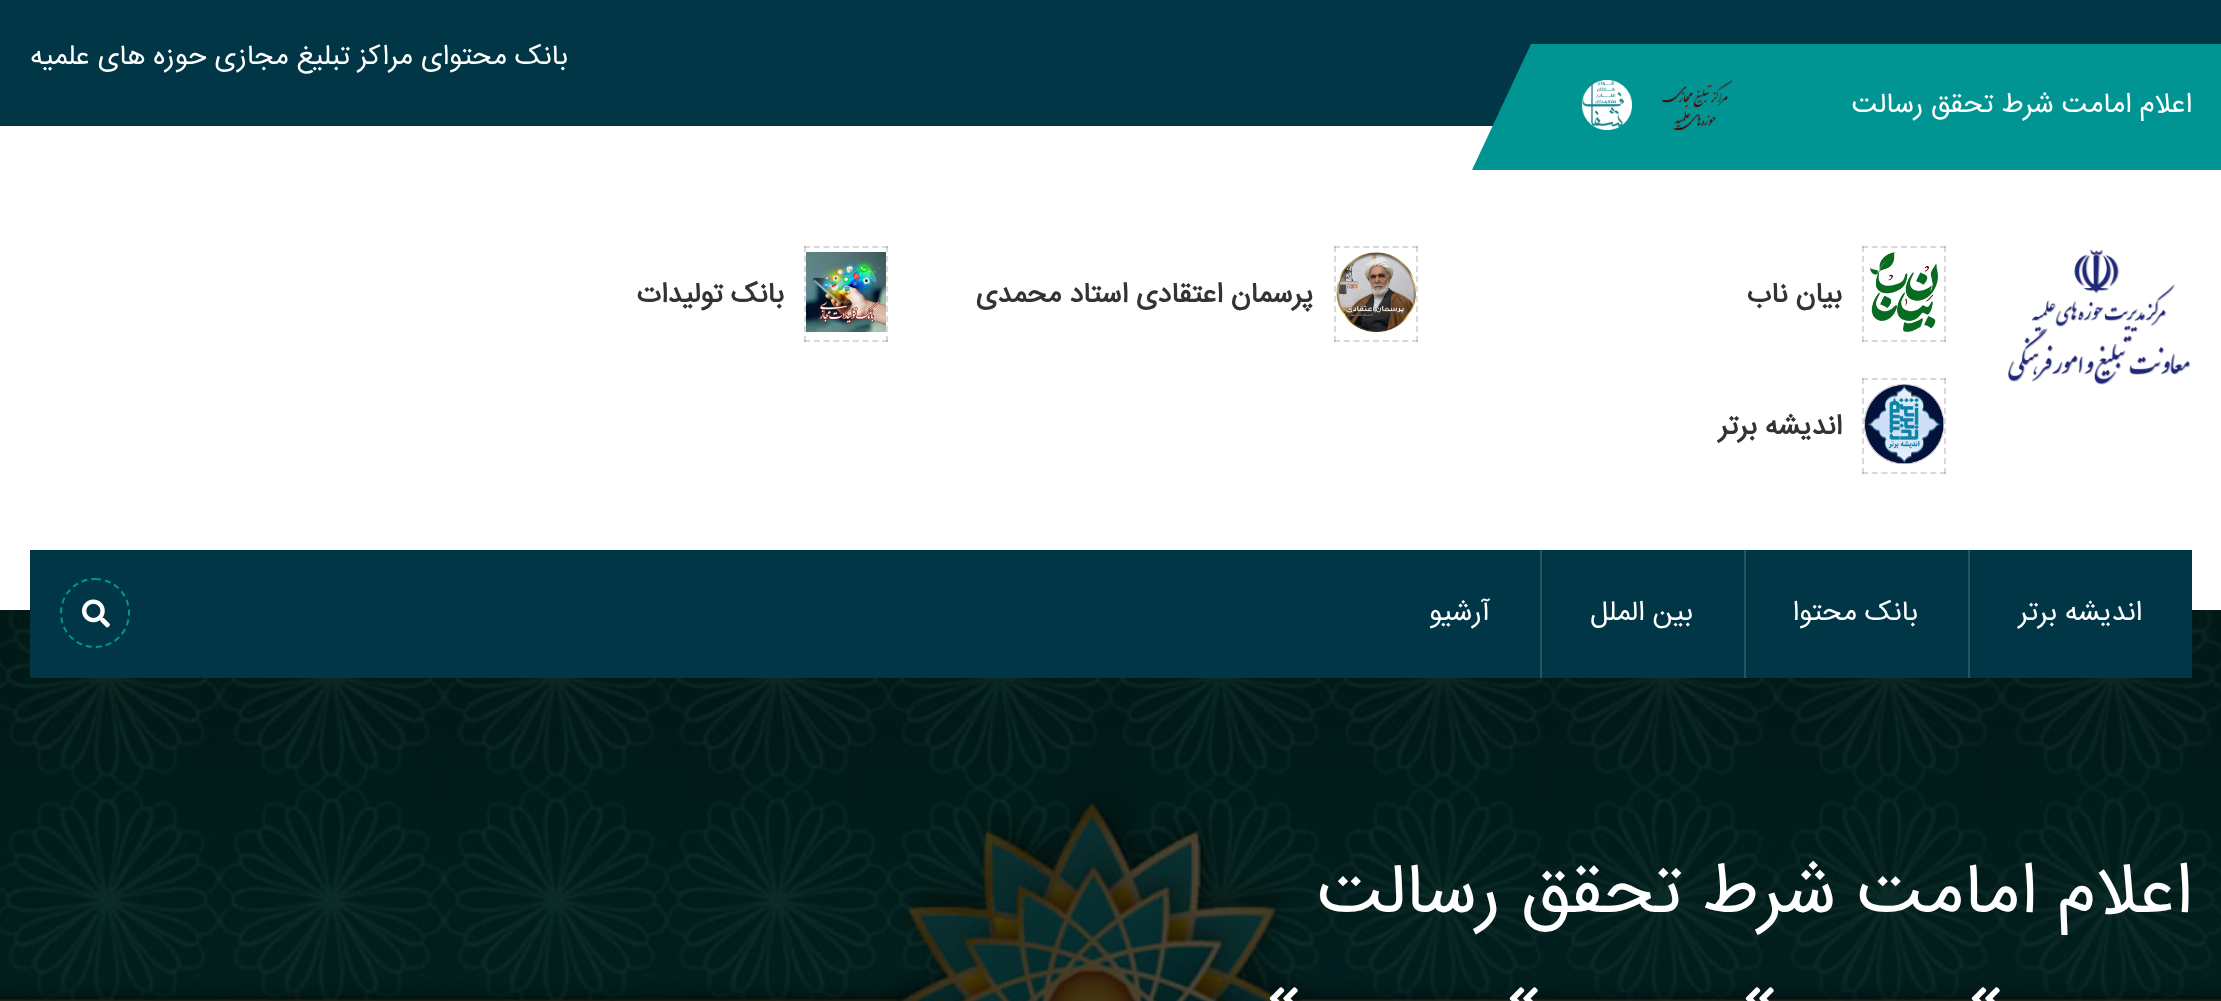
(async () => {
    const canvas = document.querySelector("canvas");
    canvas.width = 2221;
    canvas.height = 1001;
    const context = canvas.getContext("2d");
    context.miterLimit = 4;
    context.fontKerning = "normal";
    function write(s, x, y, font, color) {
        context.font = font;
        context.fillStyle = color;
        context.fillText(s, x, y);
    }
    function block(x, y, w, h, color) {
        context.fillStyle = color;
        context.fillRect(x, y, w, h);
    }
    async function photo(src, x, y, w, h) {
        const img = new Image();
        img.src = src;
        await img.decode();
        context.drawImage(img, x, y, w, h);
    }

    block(0, 0, 2221, 1001, "rgb(255, 255, 255)");
    block(0, 0, 2221, 126, "rgb(1, 54, 70)");
    context.direction = "rtl";
    write("بانک محتوای مراکز تبلیغ مجازی حوزه های علمیه", 568, 64, "28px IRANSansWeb", "rgb(255, 255, 255)");
    context.fillStyle = "rgb(0, 149, 147)";
    context.beginPath();
    context.moveTo(1531, 44);
    context.lineTo(2221, 44);
    context.lineTo(2163, 170);
    context.lineTo(1472, 170);
    context.closePath();
    context.fill();
    block(2163, 44, 58, 126, "rgb(0, 149, 147)");
    write("اعلام امامت شرط تحقق رسالت", 2192, 112, "28px IRANSansWeb", "rgb(255, 255, 255)");
    await photo("media/1.png", 1662, 80, 70, 50);
    await photo("media/2.png", 1582, 80, 50, 50);
    await photo("media/3.png", 2007, 249, 184, 136);
    context.beginPath();
    context.moveTo(1862, 247);
    context.lineTo(1946, 247);
    context.strokeStyle = "rgb(215, 217, 218)";
    context.lineWidth = 2;
    context.setLineDash([6, 3.76]);
    context.stroke();
    context.beginPath();
    context.moveTo(1945, 246);
    context.lineTo(1945, 342);
    context.strokeStyle = "rgba(31, 42, 48, 0.18)";
    context.setLineDash([6, 4]);
    context.stroke();
    context.beginPath();
    context.moveTo(1862, 341);
    context.lineTo(1946, 341);
    context.setLineDash([6, 3.76]);
    context.stroke();
    context.beginPath();
    context.moveTo(1863, 246);
    context.lineTo(1863, 342);
    context.setLineDash([6, 4]);
    context.stroke();
    await photo("media/4.png", 1870, 252, 68, 80);
    write("بیان ناب", 1842, 302, "bold 28px IRANSansWeb", "rgb(51, 51, 51)");
    context.beginPath();
    context.moveTo(1334, 247);
    context.lineTo(1418, 247);
    context.strokeStyle = "rgb(215, 217, 218)";
    context.setLineDash([6, 3.76]);
    context.stroke();
    context.beginPath();
    context.moveTo(1417, 246);
    context.lineTo(1417, 342);
    context.strokeStyle = "rgba(31, 42, 48, 0.18)";
    context.setLineDash([6, 4]);
    context.stroke();
    context.beginPath();
    context.moveTo(1334, 341);
    context.lineTo(1418, 341);
    context.setLineDash([6, 3.76]);
    context.stroke();
    context.beginPath();
    context.moveTo(1335, 246);
    context.lineTo(1335, 342);
    context.setLineDash([6, 4]);
    context.stroke();
    await photo("media/5.png", 1336, 252, 80, 80);
    write("پرسمان اعتقادی استاد محمدی", 1313, 302, "bold 28px IRANSansWeb", "rgb(51, 51, 51)");
    context.beginPath();
    context.moveTo(804, 247);
    context.lineTo(888, 247);
    context.strokeStyle = "rgb(215, 217, 218)";
    context.setLineDash([6, 3.76]);
    context.stroke();
    context.beginPath();
    context.moveTo(887, 246);
    context.lineTo(887, 342);
    context.strokeStyle = "rgba(31, 42, 48, 0.18)";
    context.setLineDash([6, 4]);
    context.stroke();
    context.beginPath();
    context.moveTo(804, 341);
    context.lineTo(888, 341);
    context.setLineDash([6, 3.76]);
    context.stroke();
    context.beginPath();
    context.moveTo(805, 246);
    context.lineTo(805, 342);
    context.setLineDash([6, 4]);
    context.stroke();
    await photo("media/6.png", 806, 252, 80, 80);
    write("بانک تولیدات", 784, 302, "bold 28px IRANSansWeb", "rgb(51, 51, 51)");
    context.beginPath();
    context.moveTo(1862, 379);
    context.lineTo(1946, 379);
    context.strokeStyle = "rgb(215, 217, 218)";
    context.setLineDash([6, 3.76]);
    context.stroke();
    context.beginPath();
    context.moveTo(1945, 378);
    context.lineTo(1945, 474);
    context.strokeStyle = "rgba(31, 42, 48, 0.18)";
    context.setLineDash([6, 4]);
    context.stroke();
    context.beginPath();
    context.moveTo(1862, 473);
    context.lineTo(1946, 473);
    context.setLineDash([6, 3.76]);
    context.stroke();
    context.beginPath();
    context.moveTo(1863, 378);
    context.lineTo(1863, 474);
    context.setLineDash([6, 4]);
    context.stroke();
    await photo("media/7.png", 1864, 384, 80, 80);
    write("اندیشه برتر", 1842, 434, "bold 28px IRANSansWeb", "rgb(51, 51, 51)");
    await photo("media/9.png", 0, 610, 2221, 391);
    block(30, 550, 2162, 128, "rgb(1, 54, 70)");
    write("اندیشه برتر", 2142, 620, "28px IRANSansWeb", "rgb(255, 255, 255)");
    block(1968, 550, 2, 128, "rgb(39, 84, 98)");
    write("بانک محتوا", 1918, 620, "28px IRANSansWeb", "rgb(255, 255, 255)");
    block(1744, 550, 2, 128, "rgb(39, 84, 98)");
    write("بین الملل", 1693, 620, "28px IRANSansWeb", "rgb(255, 255, 255)");
    block(1540, 550, 2, 128, "rgb(39, 84, 98)");
    write("آرشیو", 1490, 620, "28px IRANSansWeb", "rgb(255, 255, 255)");
    context.beginPath();
    context.moveTo(95, 579);
    context.bezierCurveTo(114, 579, 129, 594, 129, 613);
    context.bezierCurveTo(129, 632, 114, 647, 95, 647);
    context.bezierCurveTo(76, 647, 61, 632, 61, 613);
    context.bezierCurveTo(61, 594, 76, 579, 95, 579);
    context.closePath();
    context.strokeStyle = "rgb(0, 149, 147)";
    context.stroke();
    await photo("media/8.png", 82, 599, 28, 29);
    write("اعلام امامت شرط تحقق رسالت", 2192, 912, "72px IRANSansWeb", "rgb(255, 255, 255)");
    await photo("media/10.png", 1971, 987, 29, 14);
    await photo("media/11.png", 1745, 987, 29, 14);
    await photo("media/12.png", 1509, 987, 29, 14);
    await photo("media/13.png", 1269, 987, 29, 14);
})();
